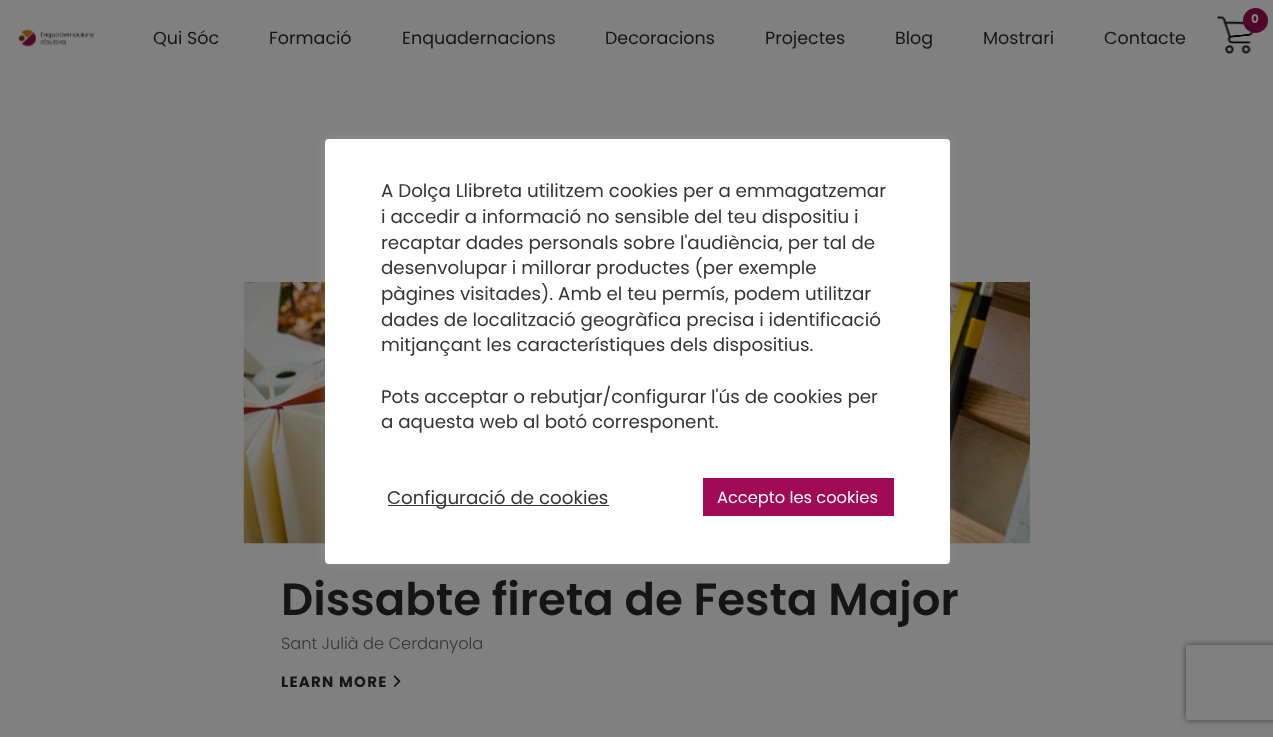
(async () => {
    const canvas = document.querySelector("canvas");
    canvas.width = 1273;
    canvas.height = 737;
    const context = canvas.getContext("2d");
    context.miterLimit = 4;
    context.fontKerning = "normal";
    function write(s, x, y, font, color) {
        context.font = font;
        context.fillStyle = color;
        context.fillText(s, x, y);
    }
    function block(x, y, w, h, color) {
        context.fillStyle = color;
        context.fillRect(x, y, w, h);
    }
    function card(x, y, w, h, r, color) {
        context.fillStyle = color;
        context.beginPath();
        context.roundRect(x, y, w, h, r);
        context.fill();
    }
    async function photo(src, x, y, w, h) {
        const img = new Image();
        img.src = src;
        await img.decode();
        context.drawImage(img, x, y, w, h);
    }

    block(0, 0, 1273, 737, "rgb(128, 128, 128)");
    await photo("media/1.png", 18, 29, 76, 18);
    await photo("media/2.png", 1217, 16, 37, 38);
    context.fillStyle = "rgb(80, 5, 43)";
    context.beginPath();
    context.arc(1255.5, 20.5, 12.5, 0, Math.PI * 2);
    context.fill();
    write("0", 1251, 23, "bold 12px Poppins", "rgb(128, 128, 128)");
    write("Qui Sóc", 153, 44, "17.5px Poppins", "rgb(20, 22, 22)");
    write("Formació", 269, 44, "17.5px Poppins", "rgb(20, 22, 22)");
    write("Enquadernacions", 402, 44, "17.5px Poppins", "rgb(20, 22, 22)");
    write("Decoracions", 605, 44, "17.5px Poppins", "rgb(20, 22, 22)");
    write("Projectes", 765, 44, "17.5px Poppins", "rgb(20, 22, 22)");
    write("Blog", 895, 44, "17.5px Poppins", "rgb(20, 22, 22)");
    write("Mostrari", 983, 44, "17.5px Poppins", "rgb(20, 22, 22)");
    write("Contacte", 1104, 44, "17.5px Poppins", "rgb(20, 22, 22)");
    await photo("media/3.png", 243, 282, 787, 262);
    context.fillStyle = "rgba(172, 171, 171, 0.3)";
    context.filter = "blur(6px)";
    context.beginPath();
    context.roundRect(325, 138, 625, 425, 4);
    context.fill();
    context.filter = "none";
    card(325, 139, 625, 425, 4, "rgb(255, 255, 255)");
    write("A Dolça Llibreta utilitzem cookies per a emmagatzemar", 381, 197, "18.3px Poppins", "rgb(52, 53, 53)");
    write("i accedir a informació no sensible del teu dispositiu i", 381, 223, "18.3px Poppins", "rgb(52, 53, 53)");
    write("recaptar dades personals sobre l'audiència, per tal de", 381, 249, "18.3px Poppins", "rgb(52, 53, 53)");
    write("desenvolupar i millorar productes (per exemple", 381, 274, "18.3px Poppins", "rgb(52, 53, 53)");
    write("pàgines visitades). Amb el teu permís, podem utilitzar", 381, 300, "18.3px Poppins", "rgb(52, 53, 53)");
    write("dades de localització geogràfica precisa i identificació", 381, 326, "18.3px Poppins", "rgb(52, 53, 53)");
    write("mitjançant les característiques dels dispositius.", 381, 351, "18.3px Poppins", "rgb(52, 53, 53)");
    write("Pots acceptar o rebutjar/configurar l'ús de cookies per", 381, 403, "18.3px Poppins", "rgb(52, 53, 53)");
    write("a aquesta web al botó corresponent.", 381, 428, "18.3px Poppins", "rgb(52, 53, 53)");
    block(388, 505, 221, 1, "rgb(51, 51, 51)");
    write("Configuració de cookies", 387, 504, "18.3px Poppins", "rgb(52, 53, 53)");
    block(703, 478, 191, 38, "rgb(160, 9, 85)");
    write("Accepto les cookies", 717, 503, "16.25px Poppins", "rgb(255, 255, 255)");
    write("Dissabte fireta de Festa Major", 281, 615, "600 45px Poppins", "rgb(20, 22, 22)");
    write("Sant Julià de Cerdanyola", 281, 649, "300 16.25px Poppins", "rgb(52, 53, 53)");
    context.letterSpacing = "1.25px";
    write("LEARN MORE", 281, 687, "bold 15px Poppins", "rgb(20, 22, 22)");
    await photo("media/4.png", 393, 675, 8, 12);
    context.save();
    context.beginPath();
    context.moveTo(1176, 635);
    context.lineTo(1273, 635);
    context.lineTo(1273, 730);
    context.lineTo(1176, 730);
    context.closePath();
    context.moveTo(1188.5, 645);
    context.lineTo(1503.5, 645);
    context.bezierCurveTo(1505, 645, 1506, 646, 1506, 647.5);
    context.lineTo(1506, 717.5);
    context.bezierCurveTo(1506, 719, 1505, 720, 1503.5, 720);
    context.lineTo(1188.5, 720);
    context.bezierCurveTo(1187, 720, 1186, 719, 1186, 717.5);
    context.lineTo(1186, 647.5);
    context.bezierCurveTo(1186, 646, 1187, 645, 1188.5, 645);
    context.closePath();
    context.clip("evenodd");
    context.fillStyle = "rgb(64, 64, 64)";
    context.filter = "blur(3px)";
    context.beginPath();
    context.roundRect(1186, 645, 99, 75, 2.5);
    context.fill();
    context.filter = "none";
    context.restore();
})();
